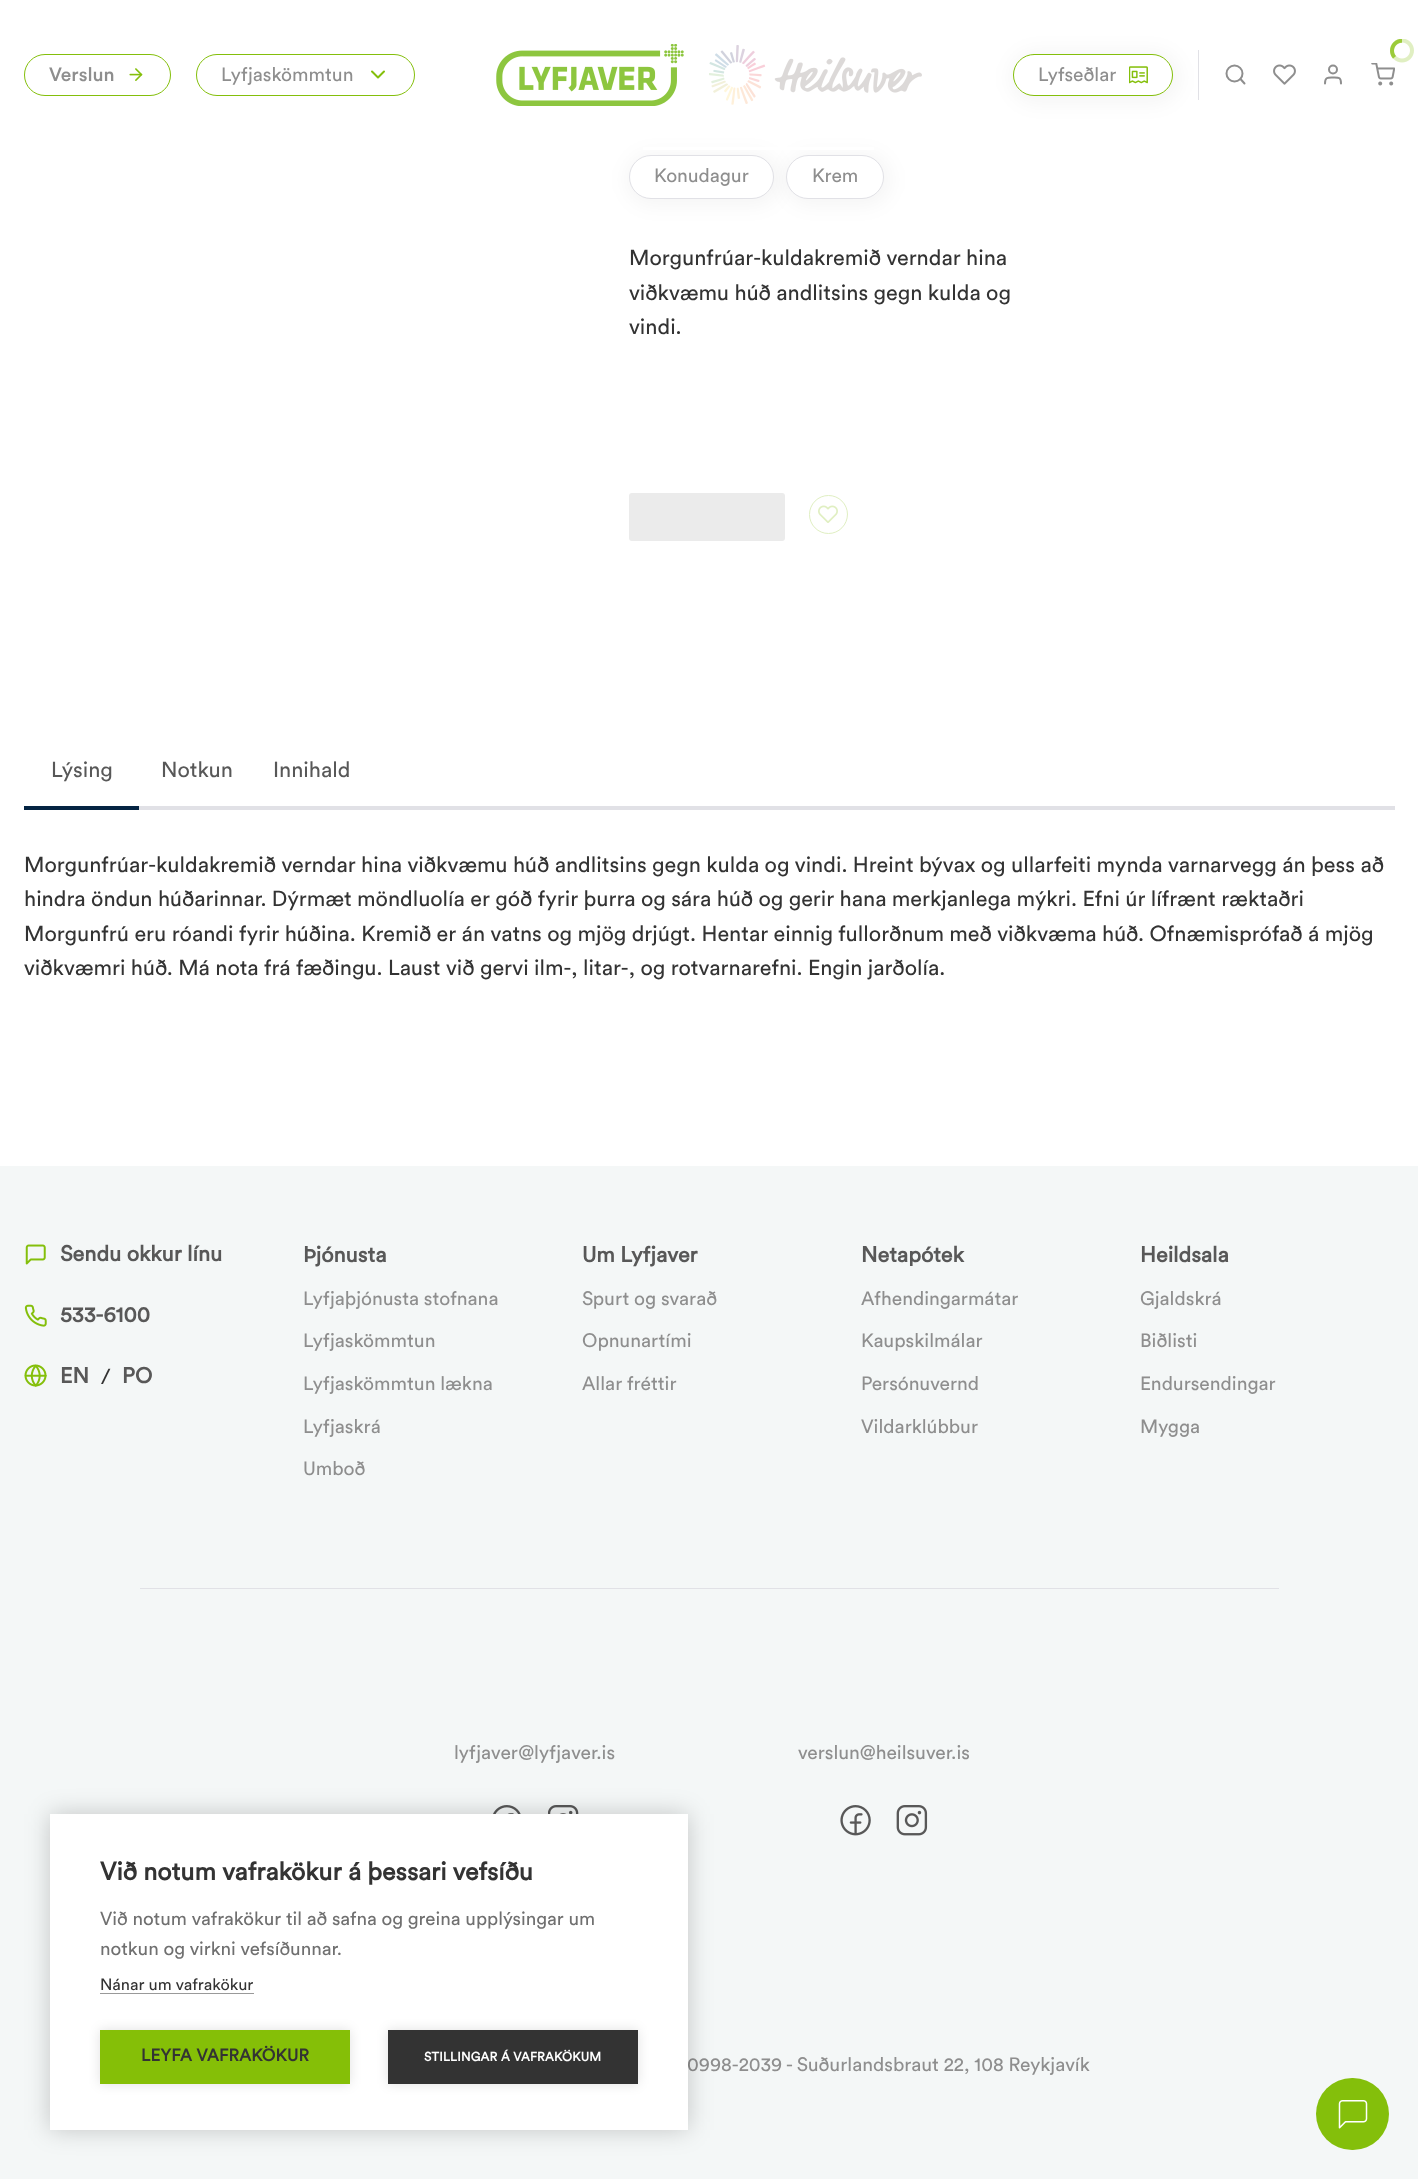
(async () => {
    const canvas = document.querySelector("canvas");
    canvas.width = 1418;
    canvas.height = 2179;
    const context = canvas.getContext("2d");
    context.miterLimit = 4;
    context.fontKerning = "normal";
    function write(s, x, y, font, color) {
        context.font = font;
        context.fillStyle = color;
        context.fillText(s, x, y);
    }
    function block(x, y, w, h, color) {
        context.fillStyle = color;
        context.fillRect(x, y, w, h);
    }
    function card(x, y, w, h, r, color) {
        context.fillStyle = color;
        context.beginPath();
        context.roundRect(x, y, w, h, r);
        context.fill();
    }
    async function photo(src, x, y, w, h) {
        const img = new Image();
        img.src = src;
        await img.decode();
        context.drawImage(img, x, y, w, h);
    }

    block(0, 0, 1418, 2179, "rgb(255, 255, 255)");
    context.fillStyle = "rgba(0, 0, 0, 0.04)";
    context.filter = "blur(9.5px)";
    context.beginPath();
    context.roundRect(626, 153, 155, 53, 26.5);
    context.fill();
    context.filter = "none";
    context.fillStyle = "rgb(255, 255, 255)";
    context.beginPath();
    context.roundRect(629.5, 155.5, 144, 43, 21.5);
    context.fill();
    context.strokeStyle = "rgb(225, 225, 230)";
    context.stroke();
    context.fillStyle = "rgba(0, 0, 0, 0.04)";
    context.filter = "blur(9.5px)";
    context.beginPath();
    context.roundRect(784, 153, 107, 53, 26.5);
    context.fill();
    context.filter = "none";
    block(643, 147, 231, 3, "rgb(255, 255, 255)");
    context.beginPath();
    context.roundRect(24.5, 54.5, 146, 41, 20.5);
    context.strokeStyle = "rgb(132, 191, 11)";
    context.stroke();
    write("Verslun", 49, 81, "500 19.2px Circular", "rgb(142, 142, 142)");
    await photo("media/1.png", 129, 68, 14, 13);
    context.beginPath();
    context.roundRect(196.5, 54.5, 218, 41, 20.5);
    context.stroke();
    write("Lyfjaskömmtun", 221, 81, "19.2px Circular", "rgb(142, 142, 142)");
    context.beginPath();
    context.moveTo(372, 71.5);
    context.lineTo(378, 77.5);
    context.lineTo(384, 71.5);
    context.lineWidth = 2;
    context.lineCap = "round";
    context.lineJoin = "round";
    context.stroke();
    await photo("media/2.png", 496, 44, 188, 62);
    await photo("media/3.png", 709, 45, 213, 60);
    block(1198, 50, 1, 50, "rgb(225, 225, 230)");
    context.fillStyle = "rgba(0, 0, 0, 0.04)";
    context.filter = "blur(9.5px)";
    context.beginPath();
    context.roundRect(1010, 51, 170, 53, 26.5);
    context.fill();
    context.filter = "none";
    context.fillStyle = "rgb(255, 255, 255)";
    context.beginPath();
    context.roundRect(1013.5, 54.5, 159, 41, 20.5);
    context.fill();
    context.lineWidth = 1;
    context.lineJoin = "miter";
    context.stroke();
    write("Lyfseðlar", 1038, 81, "19.2px Circular", "rgb(142, 142, 142)");
    await photo("media/4.png", 1129, 66, 19, 18);
    context.beginPath();
    context.arc(1234.5, 73.5, 8, 0, Math.PI * 2);
    context.strokeStyle = "rgb(142, 142, 142)";
    context.lineWidth = 2;
    context.stroke();
    context.beginPath();
    context.moveTo(1244.5, 83.5);
    context.lineTo(1240.5, 79);
    context.lineJoin = "round";
    context.stroke();
    await photo("media/5.png", 1273, 64, 23, 21);
    context.beginPath();
    context.moveTo(1341, 83.5);
    context.bezierCurveTo(1341, 77, 1339, 77.5, 1333, 77.5);
    context.bezierCurveTo(1327.5, 77.5, 1325, 77, 1325, 83.5);
    context.stroke();
    context.beginPath();
    context.arc(1333, 69.5, 4, 0, Math.PI * 2);
    context.stroke();
    await photo("media/6.png", 1390, 39, 24, 24);
    await photo("media/7.png", 1371, 63, 24, 23);
    block(0, 1166, 1418, 1013, "rgb(244, 247, 247)");
    card(1316, 2078, 73, 72, 36, "rgb(132, 191, 11)");
    await photo("media/8.png", 1338, 2100, 30, 29);
    write("Konudagur", 654, 182, "19.2px Circular", "rgb(142, 142, 142)");
    context.fillStyle = "rgb(255, 255, 255)";
    context.beginPath();
    context.roundRect(786.5, 155.5, 97, 43, 21.5);
    context.fill();
    context.strokeStyle = "rgb(225, 225, 230)";
    context.lineWidth = 1;
    context.lineJoin = "miter";
    context.stroke();
    write("Krem", 812, 182, "19.2px Circular", "rgb(142, 142, 142)");
    write("Morgunfrúar-kuldakremið verndar hina", 629, 265, "21.6px Circular", "rgb(51, 51, 51)");
    write("viðkvæmu húð andlitsins gegn kulda og", 629, 300, "21.6px Circular", "rgb(51, 51, 51)");
    write("vindi.", 629, 334, "21.6px Circular", "rgb(51, 51, 51)");
    card(629, 493, 156, 48, 3, "rgb(235, 235, 235)");
    context.beginPath();
    context.arc(828.5, 514.5, 19, 0, Math.PI * 2);
    context.strokeStyle = "rgb(224, 239, 194)";
    context.stroke();
    await photo("media/9.png", 818, 505, 20, 18);
    block(139, 806, 1256, 4, "rgb(225, 225, 230)");
    write("Lýsing", 51, 777, "21.6px Circular", "rgb(88, 88, 88)");
    block(24, 806, 115, 4, "rgb(4, 36, 66)");
    write("Notkun", 161, 777, "21.6px Circular", "rgb(88, 88, 88)");
    write("Innihald", 273, 777, "21.6px Circular", "rgb(88, 88, 88)");
    write("Morgunfrúar-kuldakremið verndar hina viðkvæmu húð andlitsins gegn kulda og vindi. Hreint bývax og ullarfeiti mynda varnarvegg án þess að", 24, 872, "21.6px Circular", "rgb(51, 51, 51)");
    write("hindra öndun húðarinnar. Dýrmæt möndluolía er góð fyrir þurra og sára húð og gerir hana merkjanlega mýkri. Efni úr lífrænt ræktaðri", 24, 906, "21.6px Circular", "rgb(51, 51, 51)");
    write("Morgunfrú eru róandi fyrir húðina. Kremið er án vatns og mjög drjúgt. Hentar einnig fullorðnum með viðkvæma húð. Ofnæmisprófað á mjög", 24, 941, "21.6px Circular", "rgb(51, 51, 51)");
    write("viðkvæmri húð. Má nota frá fæðingu. Laust við gervi ilm-, litar-, og rotvarnarefni. Engin jarðolía.", 24, 975, "21.6px Circular", "rgb(51, 51, 51)");
    await photo("media/10.png", 25, 1244, 21, 21);
    write("Sendu okkur línu", 60, 1261, "bold 21.6px Circular", "rgb(88, 88, 88)");
    await photo("media/11.png", 24, 1304, 23, 23);
    write("533-6100", 60, 1322, "bold 21.6px Circular", "rgb(88, 88, 88)");
    await photo("media/12.png", 24, 1364, 23, 23);
    write("EN", 60, 1383, "bold 21.6px Circular", "rgb(88, 88, 88)");
    write("/", 101, 1384, "21.6px Circular", "rgb(51, 51, 51)");
    write("PO", 122, 1383, "bold 21.6px Circular", "rgb(88, 88, 88)");
    write("Þjónusta", 303, 1262, "bold 21.6px Circular", "rgb(88, 88, 88)");
    write("Lyfjaþjónusta stofnana", 303, 1305, "19.2px Circular", "rgb(142, 142, 142)");
    write("Lyfjaskömmtun", 303, 1347, "19.2px Circular", "rgb(142, 142, 142)");
    write("Lyfjaskömmtun lækna", 303, 1390, "19.2px Circular", "rgb(142, 142, 142)");
    write("Lyfjaskrá", 303, 1433, "19.2px Circular", "rgb(142, 142, 142)");
    write("Umboð", 303, 1475, "19.2px Circular", "rgb(142, 142, 142)");
    write("Um Lyfjaver", 582, 1262, "bold 21.6px Circular", "rgb(88, 88, 88)");
    write("Spurt og svarað", 582, 1305, "19.2px Circular", "rgb(142, 142, 142)");
    write("Opnunartími", 582, 1347, "19.2px Circular", "rgb(142, 142, 142)");
    write("Allar fréttir", 582, 1390, "19.2px Circular", "rgb(142, 142, 142)");
    write("Netapótek", 861, 1262, "bold 21.6px Circular", "rgb(88, 88, 88)");
    write("Afhendingarmátar", 861, 1305, "19.2px Circular", "rgb(142, 142, 142)");
    write("Kaupskilmálar", 861, 1347, "19.2px Circular", "rgb(142, 142, 142)");
    write("Persónuvernd", 861, 1390, "19.2px Circular", "rgb(142, 142, 142)");
    write("Vildarklúbbur", 861, 1433, "19.2px Circular", "rgb(142, 142, 142)");
    write("Heildsala", 1140, 1262, "bold 21.6px Circular", "rgb(88, 88, 88)");
    write("Gjaldskrá", 1140, 1305, "19.2px Circular", "rgb(142, 142, 142)");
    write("Biðlisti", 1140, 1347, "19.2px Circular", "rgb(142, 142, 142)");
    write("Endursendingar", 1140, 1390, "19.2px Circular", "rgb(142, 142, 142)");
    write("Mygga", 1140, 1433, "19.2px Circular", "rgb(142, 142, 142)");
    block(140, 1588, 1139, 1, "rgb(225, 225, 230)");
    write("lyfjaver@lyfjaver.is", 454, 1759, "19.2px Circular", "rgb(142, 142, 142)");
    await photo("media/13.png", 493, 1805, 28, 9);
    await photo("media/14.png", 548, 1805, 31, 9);
    write("verslun@heilsuver.is", 798, 1759, "19.2px Circular", "rgb(142, 142, 142)");
    await photo("media/15.png", 840, 1805, 31, 31);
    await photo("media/16.png", 896, 1805, 32, 31);
    write("0998-2039 - Suðurlandsbraut 22, 108 Reykjavík", 687, 2071, "19.2px Circular", "rgb(142, 142, 142)");
    context.fillStyle = "rgba(0, 0, 0, 0.2)";
    context.filter = "blur(12.5px)";
    context.beginPath();
    context.rect(50, 1814, 638, 316);
    context.fill();
    context.filter = "none";
    block(50, 1814, 638, 316, "rgb(255, 255, 255)");
    write("Við notum vafrakökur á þessari vefsíðu", 100, 1880, "bold 25px Circular", "rgb(51, 51, 51)");
    write("Við notum vafrakökur til að safna og greina upplýsingar um", 100, 1925, "18.75px Circular", "rgb(112, 112, 112)");
    write("notkun og virkni vefsíðunnar.", 100, 1955, "18.75px Circular", "rgb(112, 112, 112)");
    write("Nánar um vafrakökur", 100, 1990, "16.25px Circular", "rgb(51, 51, 51)");
    block(100, 1993, 154, 1, "rgb(153, 153, 153)");
    context.fillStyle = "rgba(0, 0, 0, 0.12)";
    context.filter = "blur(6px)";
    context.beginPath();
    context.rect(100, 2030, 250, 54);
    context.fill();
    context.filter = "none";
    block(100, 2030, 250, 54, "rgb(133, 191, 7)");
    context.letterSpacing = "0.25px";
    write("LEYFA VAFRAKÖKUR", 141, 2061, "bold 16.9px Circular", "rgb(51, 51, 51)");
    context.fillStyle = "rgba(0, 0, 0, 0.12)";
    context.filter = "blur(6px)";
    context.beginPath();
    context.rect(388, 2030, 250, 54);
    context.fill();
    context.filter = "none";
    block(388, 2030, 250, 54, "rgb(51, 51, 51)");
    write("STILLINGAR Á VAFRAKÖKUM", 424, 2061, "bold 12.5px Circular", "rgb(255, 255, 255)");
})();
